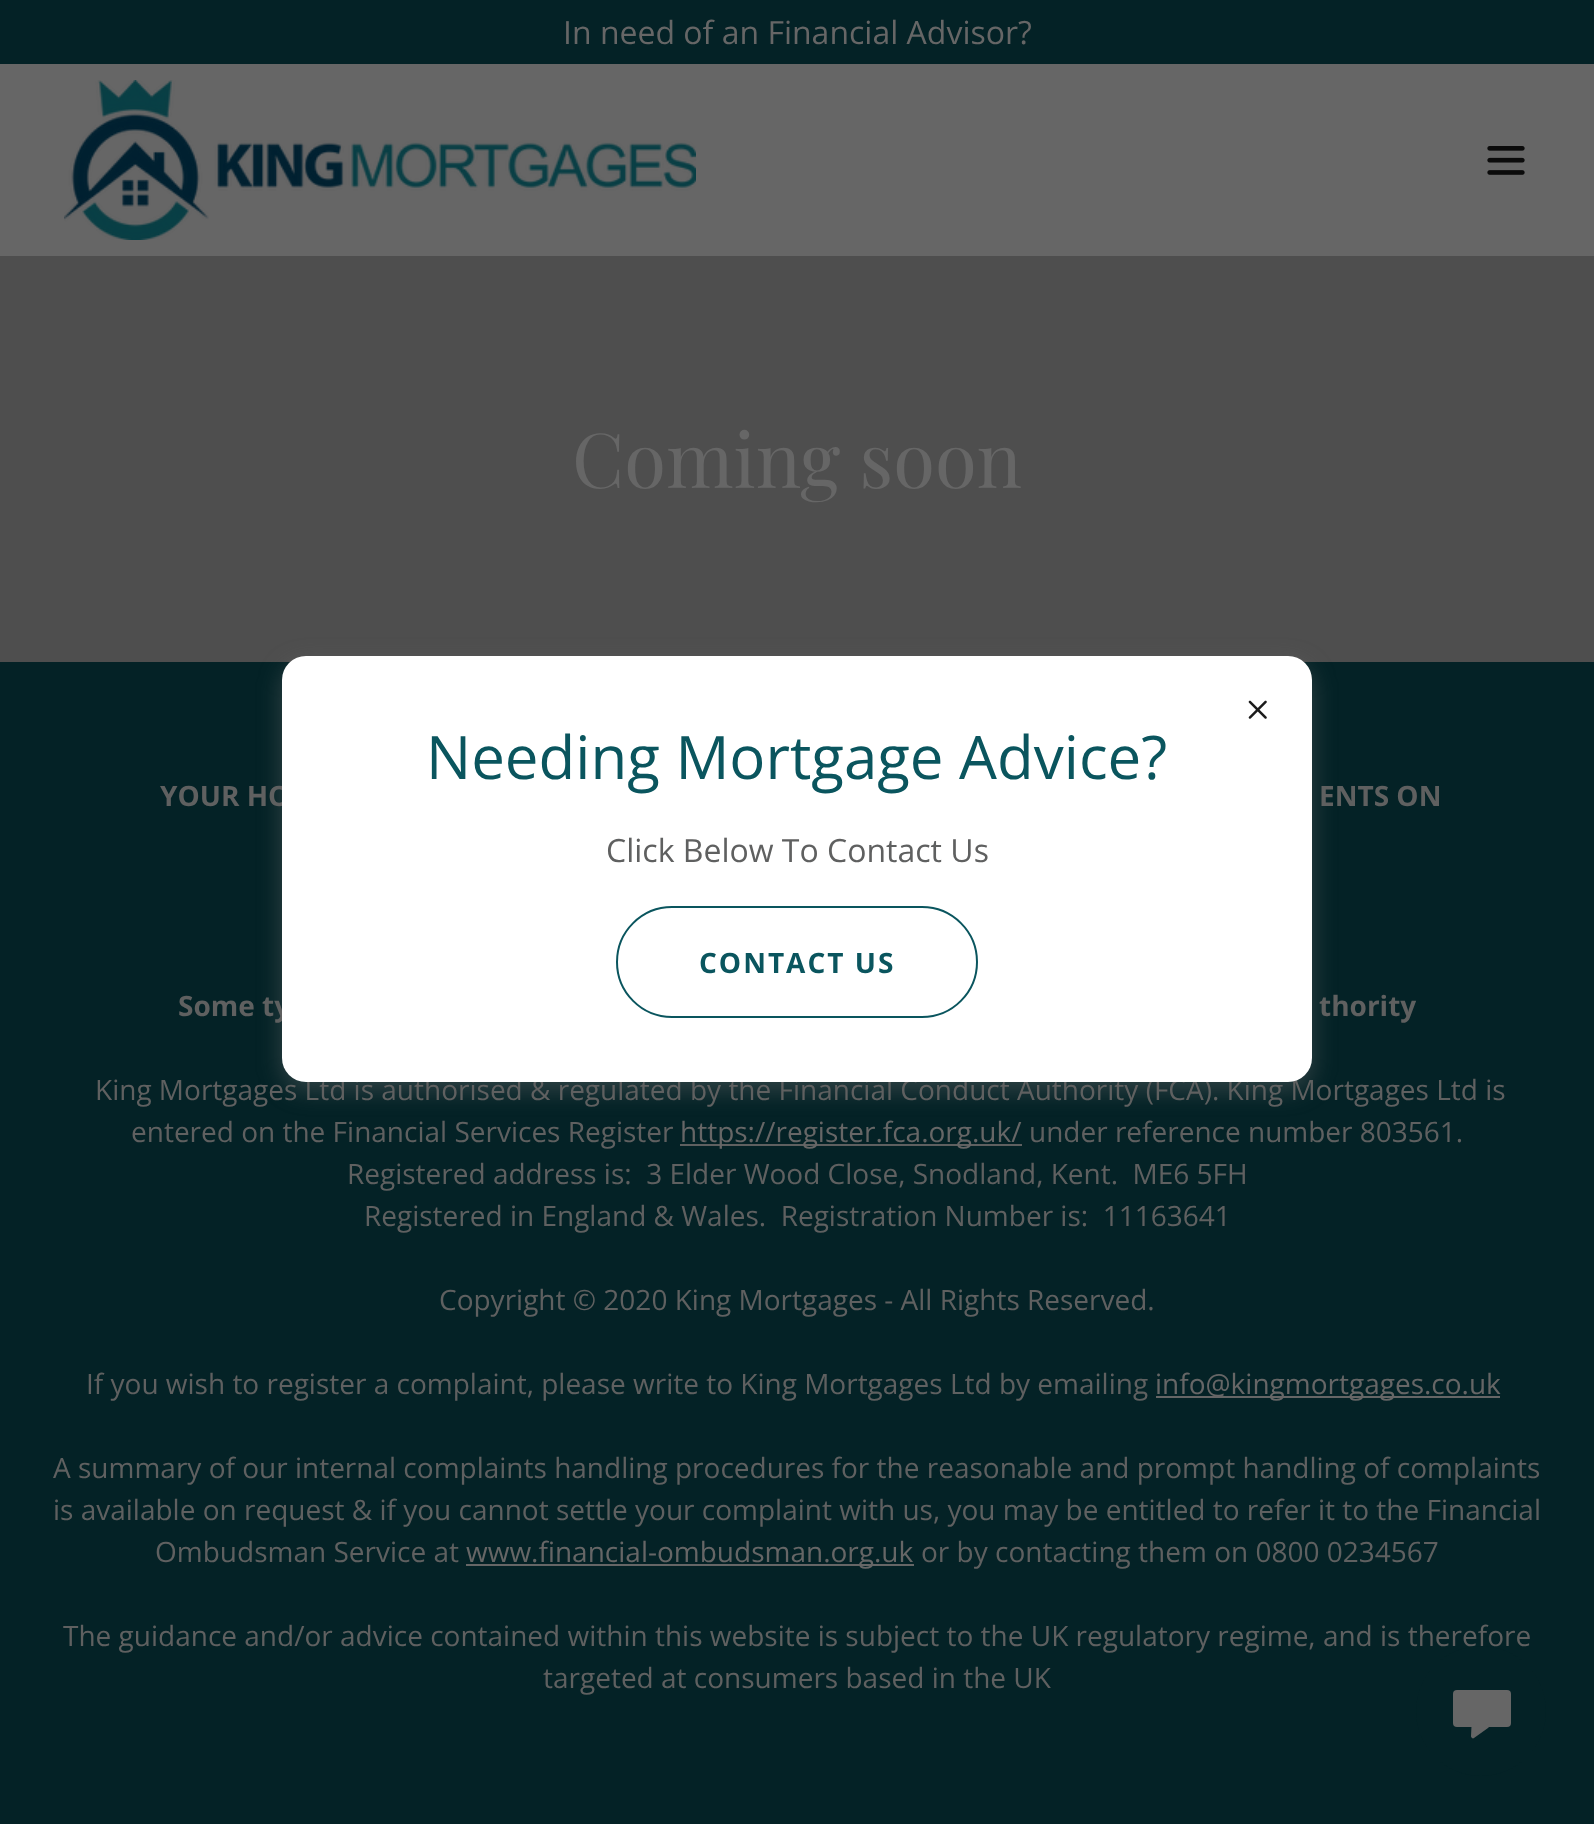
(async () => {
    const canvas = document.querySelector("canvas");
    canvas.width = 1594;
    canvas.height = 1824;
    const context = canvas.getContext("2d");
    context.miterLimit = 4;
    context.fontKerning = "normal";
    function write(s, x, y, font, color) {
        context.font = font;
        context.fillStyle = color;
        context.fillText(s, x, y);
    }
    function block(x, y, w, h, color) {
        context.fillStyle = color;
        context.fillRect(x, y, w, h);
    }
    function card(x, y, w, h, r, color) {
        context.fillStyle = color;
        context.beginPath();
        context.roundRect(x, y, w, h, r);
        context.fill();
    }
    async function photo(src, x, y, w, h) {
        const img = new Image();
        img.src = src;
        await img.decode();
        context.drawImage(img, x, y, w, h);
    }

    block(0, 0, 1594, 1824, "rgb(4, 34, 38)");
    block(0, 64, 1594, 192, "rgb(102, 102, 102)");
    write("In need of an Financial Advisor?", 563, 44, "32px Open Sans", "rgb(102, 102, 102)");
    await photo("media/1.png", 64, 80, 632, 160);
    await photo("media/2.png", 1487, 146, 38, 29);
    block(0, 256, 1594, 406, "rgb(78, 78, 78)");
    write("Coming soon", 572, 488, "76px Playfair Display", "rgb(102, 102, 102)");
    context.fillStyle = "rgba(117, 117, 117, 0.4)";
    context.filter = "blur(12px)";
    context.beginPath();
    context.roundRect(282, 664, 1030, 426, 24);
    context.fill();
    context.filter = "none";
    write("YOUR HO", 160, 806, "bold 28px Open Sans", "rgb(95, 96, 96)");
    write("Some ty", 178, 1016, "bold 28px Open Sans", "rgb(95, 96, 96)");
    write("King Mortgages Ltd is authorised & regulated by the Financial Conduct Authority (FCA). King Mortgages Ltd is", 95, 1100, "28px Open Sans", "rgb(95, 96, 96)");
    card(282, 656, 1030, 426, 24, "rgb(255, 255, 255)");
    await photo("media/3.png", 1248, 700, 19, 19);
    write("Needing Mortgage Advice?", 426, 779, "60px Open Sans", "rgb(10, 85, 94)");
    write("Click Below To Contact Us", 606, 862, "32px Open Sans", "rgb(95, 96, 96)");
    context.beginPath();
    context.roundRect(617, 907, 360, 110, 55);
    context.strokeStyle = "rgb(10, 85, 94)";
    context.lineWidth = 2;
    context.stroke();
    context.letterSpacing = "2px";
    write("CONTACT US", 699, 973, "bold 28px Open Sans", "rgb(10, 85, 94)");
    context.letterSpacing = "0px";
    write("ENTS ON", 1319, 806, "bold 28px Open Sans", "rgb(95, 96, 96)");
    write("thority", 1319, 1016, "bold 28px Open Sans", "rgb(95, 96, 96)");
    write("entered on the Financial Services Register", 131, 1142, "28px Open Sans", "rgb(95, 96, 96)");
    block(680, 1144, 342, 2, "rgb(95, 96, 96)");
    write("https://register.fca.org.uk/", 680, 1142, "28px Open Sans", "rgb(102, 102, 102)");
    write("under reference number 803561.", 1029, 1142, "28px Open Sans", "rgb(95, 96, 96)");
    write("Registered address is:  3 Elder Wood Close, Snodland, Kent.  ME6 5FH", 347, 1184, "28px Open Sans", "rgb(95, 96, 96)");
    write("Registered in England & Wales.  Registration Number is:  11163641", 364, 1226, "28px Open Sans", "rgb(95, 96, 96)");
    write("Copyright © 2020 King Mortgages - All Rights Reserved.", 439, 1310, "28px Open Sans", "rgb(95, 96, 96)");
    write("If you wish to register a complaint, please write to King Mortgages Ltd by emailing", 86, 1394, "28px Open Sans", "rgb(95, 96, 96)");
    block(1156, 1396, 344, 2, "rgb(102, 102, 102)");
    write("info@kingmortgages.co.uk", 1155, 1394, "28px Open Sans", "rgb(102, 102, 102)");
    write("A summary of our internal complaints handling procedures for the reasonable and prompt handling of complaints", 53, 1478, "28px Open Sans", "rgb(95, 96, 96)");
    write("is available on request & if you cannot settle your complaint with us, you may be entitled to refer it to the Financial", 53, 1520, "28px Open Sans", "rgb(95, 96, 96)");
    write("Ombudsman Service at", 155, 1562, "28px Open Sans", "rgb(95, 96, 96)");
    block(466, 1564, 448, 2, "rgb(102, 102, 102)");
    write("www.financial-ombudsman.org.uk", 466, 1562, "28px Open Sans", "rgb(102, 102, 102)");
    write("or by contacting them on 0800 0234567", 921, 1562, "28px Open Sans", "rgb(95, 96, 96)");
    write("The guidance and/or advice contained within this website is subject to the UK regulatory regime, and is therefore", 63, 1646, "28px Open Sans", "rgb(95, 96, 96)");
    write("targeted at consumers based in the UK", 543, 1688, "28px Open Sans", "rgb(95, 96, 96)");
    context.fillStyle = "rgb(4, 34, 38)";
    context.beginPath();
    context.arc(1481, 1711, 65, 0, Math.PI * 2);
    context.fill();
    card(1453, 1690, 58, 37, 4, "rgb(102, 102, 102)");
    context.beginPath();
    context.moveTo(1471, 1736);
    context.lineTo(1471.5, 1726);
    context.bezierCurveTo(1471.5, 1725, 1472.5, 1724, 1473.5, 1724);
    context.lineTo(1487, 1724);
    context.bezierCurveTo(1489, 1724, 1490, 1727, 1488, 1728);
    context.lineTo(1474, 1738);
    context.bezierCurveTo(1473.5, 1738.5, 1472.5, 1738.5, 1472, 1738);
    context.bezierCurveTo(1471.5, 1737.5, 1471, 1737, 1471, 1736);
    context.closePath();
    context.fill();
})();
